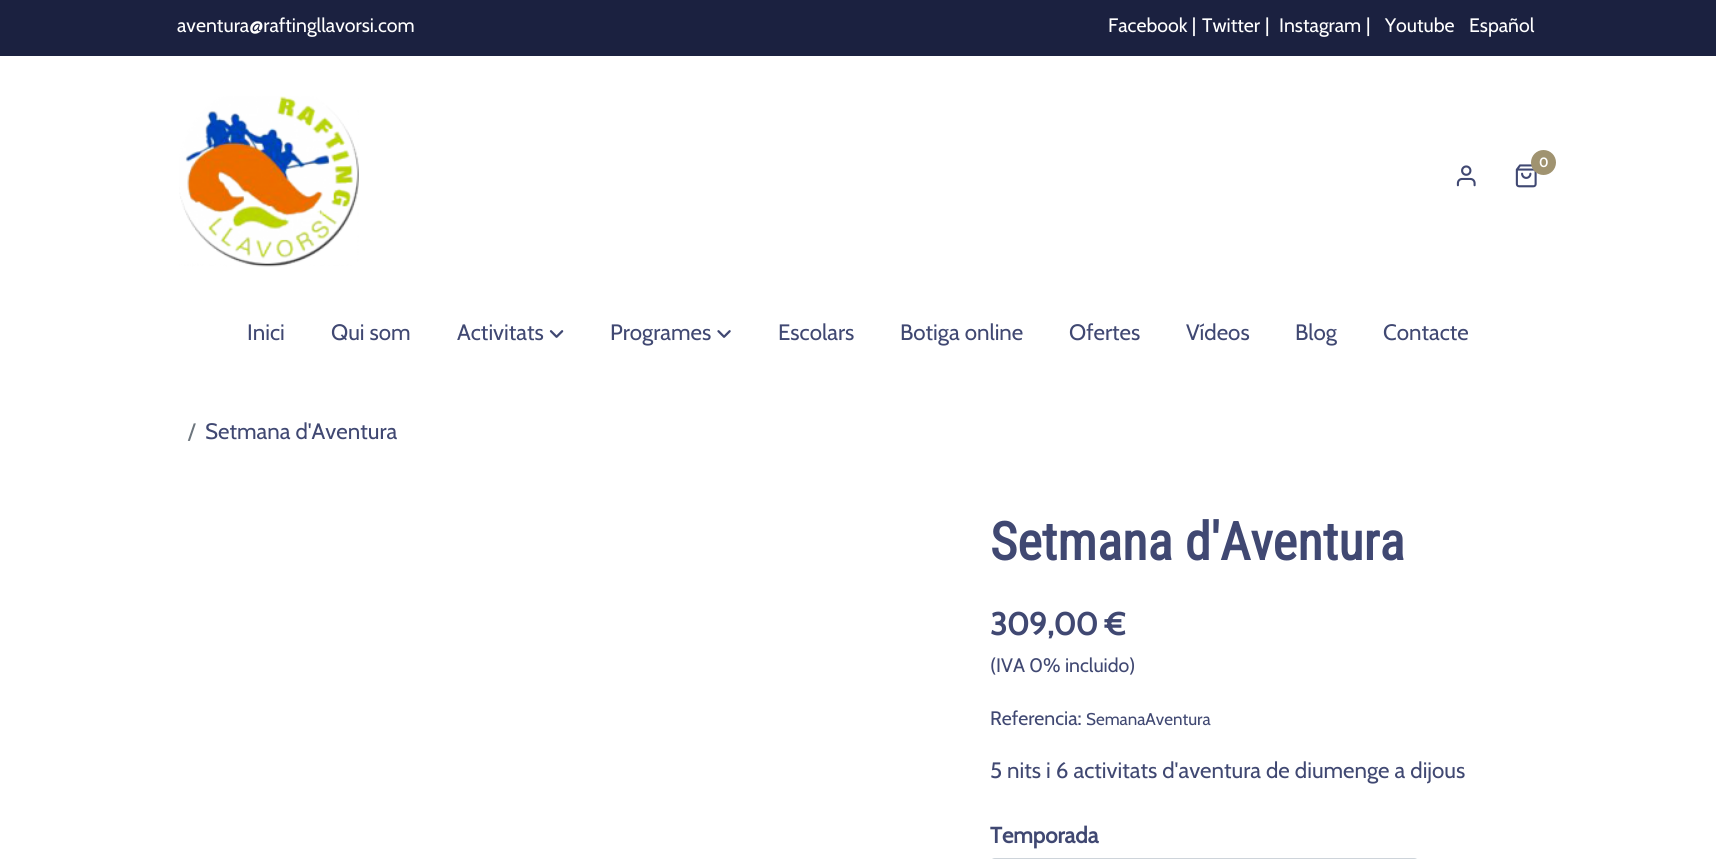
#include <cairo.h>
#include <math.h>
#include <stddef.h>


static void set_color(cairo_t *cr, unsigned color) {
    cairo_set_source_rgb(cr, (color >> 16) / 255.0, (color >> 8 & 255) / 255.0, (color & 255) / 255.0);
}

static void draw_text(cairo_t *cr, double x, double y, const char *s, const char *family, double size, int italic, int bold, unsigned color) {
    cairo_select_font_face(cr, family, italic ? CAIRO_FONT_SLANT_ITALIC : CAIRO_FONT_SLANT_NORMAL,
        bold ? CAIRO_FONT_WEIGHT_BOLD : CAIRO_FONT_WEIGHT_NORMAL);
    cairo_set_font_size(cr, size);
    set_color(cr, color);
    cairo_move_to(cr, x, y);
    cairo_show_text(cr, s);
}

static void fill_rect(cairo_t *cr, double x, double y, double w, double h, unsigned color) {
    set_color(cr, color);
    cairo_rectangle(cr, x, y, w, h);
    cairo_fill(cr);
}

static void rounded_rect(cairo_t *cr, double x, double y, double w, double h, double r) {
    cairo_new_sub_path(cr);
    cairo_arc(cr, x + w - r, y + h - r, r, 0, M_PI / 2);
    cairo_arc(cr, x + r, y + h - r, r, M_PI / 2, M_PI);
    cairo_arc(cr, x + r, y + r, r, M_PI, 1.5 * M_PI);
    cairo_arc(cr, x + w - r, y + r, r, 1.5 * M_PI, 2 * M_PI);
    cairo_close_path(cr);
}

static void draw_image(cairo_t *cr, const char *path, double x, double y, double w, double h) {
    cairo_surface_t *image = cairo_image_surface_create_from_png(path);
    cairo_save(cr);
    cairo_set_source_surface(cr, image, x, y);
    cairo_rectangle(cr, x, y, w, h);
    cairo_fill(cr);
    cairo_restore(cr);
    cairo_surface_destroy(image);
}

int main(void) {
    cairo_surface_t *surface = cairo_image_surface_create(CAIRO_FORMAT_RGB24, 1716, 859);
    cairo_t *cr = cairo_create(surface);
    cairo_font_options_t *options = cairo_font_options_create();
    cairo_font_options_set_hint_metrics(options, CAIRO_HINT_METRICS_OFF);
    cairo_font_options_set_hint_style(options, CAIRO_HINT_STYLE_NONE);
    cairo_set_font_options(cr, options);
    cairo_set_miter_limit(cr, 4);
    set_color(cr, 0xFFFFFF);
    cairo_paint(cr);
    fill_rect(cr, 0, 0, 1716, 56, 0x1B2140);
    draw_text(cr, 177, 32, "aventura@raftingllavorsi.com", "Cabin", 19.5, 0, 0, 0xFFFFFF);
    draw_text(cr, 1108, 32, "Facebook |", "Cabin", 19.5, 0, 0, 0xFFFFFF);
    draw_text(cr, 1202, 32, "Twitter", "Cabin", 19.5, 0, 0, 0xFFFFFF);
    draw_text(cr, 1265, 32, "|", "Cabin", 19.5, 0, 0, 0xFFFFFF);
    draw_text(cr, 1279, 32, "Instagram", "Cabin", 19.5, 0, 0, 0xFFFFFF);
    draw_text(cr, 1366, 32, "|", "Cabin", 19.5, 0, 0, 0xFFFFFF);
    draw_text(cr, 1385, 32, "Youtube", "Cabin", 19.5, 0, 0, 0xFFFFFF);
    draw_text(cr, 1469, 32, "Español", "Cabin", 19.5, 0, 0, 0xFFFFFF);
    draw_image(cr, "assets/img1.png", 179, 96, 180, 171);
    draw_image(cr, "assets/img2.png", 1515, 164, 22, 24);
    set_color(cr, 0xA09370);
    cairo_arc(cr, 1543.5, 162.5, 12.5, 0, 2 * M_PI);
    cairo_fill(cr);
    draw_text(cr, 1539, 167, "0", "Cabin", 13, 0, 1, 0xFFFFFF);
    draw_image(cr, "assets/img3.png", 1456, 165, 20, 22);
    draw_text(cr, 247, 340, "Inici", "Cabin", 22.3, 0, 0, 0x404872);
    draw_text(cr, 331, 340, "Qui som", "Cabin", 22.3, 0, 0, 0x404872);
    draw_text(cr, 457, 340, "Activitats", "Cabin", 22.3, 0, 0, 0x404872);
    draw_image(cr, "assets/img4.png", 549, 330, 15, 8);
    draw_text(cr, 610, 340, "Programes", "Cabin", 22.3, 0, 0, 0x404872);
    draw_image(cr, "assets/img5.png", 717, 330, 14, 8);
    draw_text(cr, 778, 340, "Escolars", "Cabin", 22.3, 0, 0, 0x404872);
    draw_text(cr, 900, 340, "Botiga online", "Cabin", 22.3, 0, 0, 0x404872);
    draw_text(cr, 1069, 340, "Ofertes", "Cabin", 22.3, 0, 0, 0x404872);
    draw_text(cr, 1186, 340, "Vídeos", "Cabin", 22.3, 0, 0, 0x404872);
    draw_text(cr, 1295, 340, "Blog", "Cabin", 22.3, 0, 0, 0x404872);
    draw_text(cr, 1383, 340, "Contacte", "Cabin", 22.3, 0, 0, 0x404872);
    draw_text(cr, 188, 439, "/", "Cabin", 22.3, 0, 0, 0x6C757D);
    draw_text(cr, 205, 439, "Setmana d'Aventura", "Cabin", 22.3, 0, 0, 0x404872);
    draw_text(cr, 990, 560, "Setmana d'Aventura", "Roboto Condensed", 52.5, 0, 1, 0x404872);
    draw_text(cr, 990, 635, "309,00 €", "Cabin", 31.5, 0, 1, 0x404872);
    draw_text(cr, 990, 672, "(IVA 0% incluido)", "Cabin", 19.5, 0, 0, 0x404872);
    draw_text(cr, 990, 725, "Referencia:", "Cabin", 19.5, 0, 0, 0x404872);
    draw_text(cr, 1086, 725, "SemanaAventura", "Cabin", 17, 0, 0, 0x404872);
    draw_text(cr, 990, 778, "5 nits i 6 activitats d'aventura de diumenge a dijous", "Cabin", 22.3, 0, 0, 0x404872);
    draw_text(cr, 990, 843, "Temporada", "Cabin", 22.3, 0, 1, 0x404872);
    rounded_rect(cr, 990.5, 858.5, 428, 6, 4.5);
    set_color(cr, 0xCED4DA);
    cairo_set_line_width(cr, 1);
    cairo_stroke(cr);
    cairo_surface_write_to_png(surface, "output.png");
    cairo_font_options_destroy(options);
    cairo_destroy(cr);
    cairo_surface_destroy(surface);
    return 0;
}
